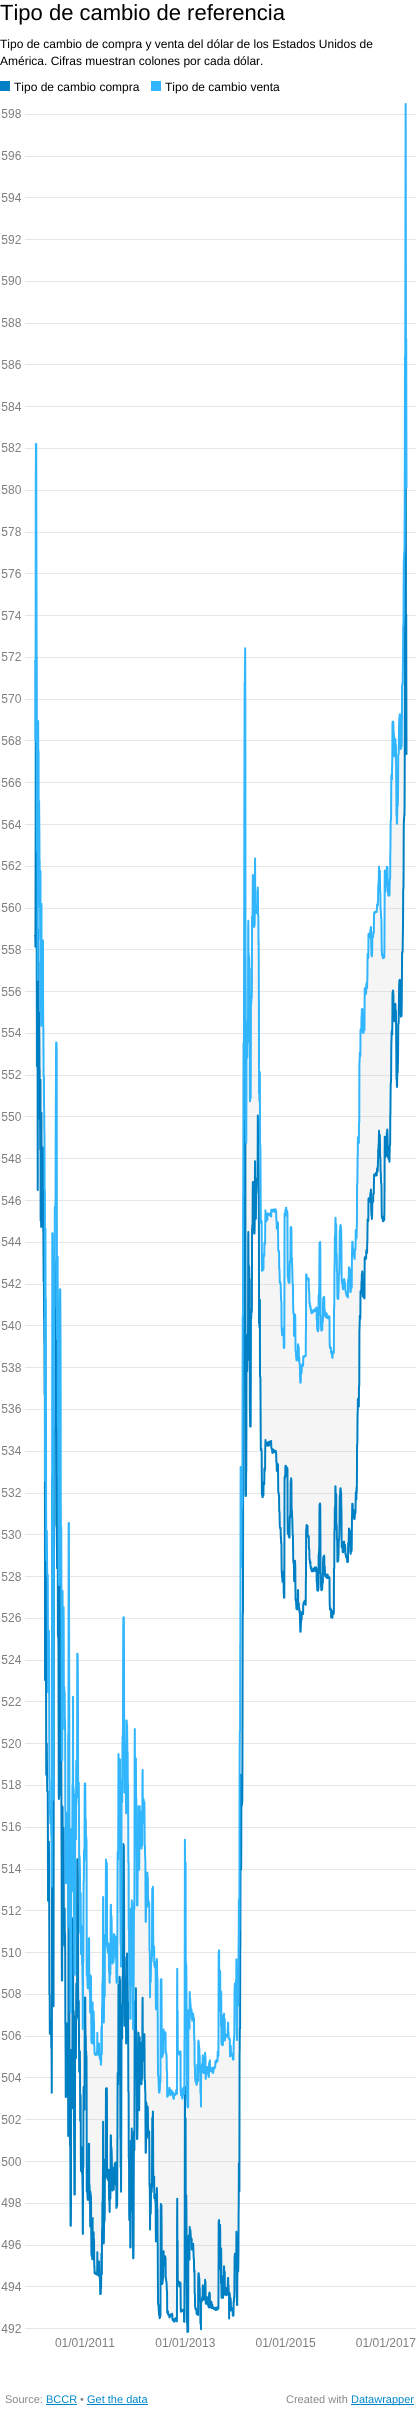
#include <cairo.h>
#include <math.h>
#include <stddef.h>


static void set_color(cairo_t *cr, unsigned color) {
    cairo_set_source_rgb(cr, (color >> 16) / 255.0, (color >> 8 & 255) / 255.0, (color & 255) / 255.0);
}

static void draw_text(cairo_t *cr, double x, double y, const char *s, const char *family, double size, int italic, int bold, unsigned color) {
    cairo_select_font_face(cr, family, italic ? CAIRO_FONT_SLANT_ITALIC : CAIRO_FONT_SLANT_NORMAL,
        bold ? CAIRO_FONT_WEIGHT_BOLD : CAIRO_FONT_WEIGHT_NORMAL);
    cairo_set_font_size(cr, size);
    set_color(cr, color);
    cairo_move_to(cr, x, y);
    cairo_show_text(cr, s);
}

static void fill_rect(cairo_t *cr, double x, double y, double w, double h, unsigned color) {
    set_color(cr, color);
    cairo_rectangle(cr, x, y, w, h);
    cairo_fill(cr);
}

static void draw_image(cairo_t *cr, const char *path, double x, double y, double w, double h) {
    cairo_surface_t *image = cairo_image_surface_create_from_png(path);
    cairo_save(cr);
    cairo_set_source_surface(cr, image, x, y);
    cairo_rectangle(cr, x, y, w, h);
    cairo_fill(cr);
    cairo_restore(cr);
    cairo_surface_destroy(image);
}

int main(void) {
    cairo_surface_t *surface = cairo_image_surface_create(CAIRO_FORMAT_RGB24, 419, 2410);
    cairo_t *cr = cairo_create(surface);
    cairo_font_options_t *options = cairo_font_options_create();
    cairo_font_options_set_hint_metrics(options, CAIRO_HINT_METRICS_OFF);
    cairo_font_options_set_hint_style(options, CAIRO_HINT_STYLE_NONE);
    cairo_set_font_options(cr, options);
    cairo_set_miter_limit(cr, 4);
    set_color(cr, 0xFFFFFF);
    cairo_paint(cr);
    draw_text(cr, 0, 20, "Tipo de cambio de referencia", "Liberation Sans", 22, 0, 0, 0x000000);
    draw_text(cr, 0, 48, "Tipo de cambio de compra y venta del dólar de los Estados Unidos de", "Liberation Sans", 12, 0, 0, 0x000000);
    draw_text(cr, 0, 65, "América. Cifras muestran colones por cada dólar.", "Liberation Sans", 12, 0, 0, 0x000000);
    fill_rect(cr, 0, 81, 10, 10, 0x0080C4);
    draw_text(cr, 14, 91, "Tipo de cambio compra", "Liberation Sans", 12, 0, 0, 0x000000);
    fill_rect(cr, 151, 81, 10, 10, 0x31B5FD);
    draw_text(cr, 165, 91, "Tipo de cambio venta", "Liberation Sans", 12, 0, 0, 0x000000);
    draw_image(cr, "assets/img1.png", 1, 103, 415, 2244);
    draw_text(cr, 5, 2403, "Source:", "Liberation Sans", 11, 0, 0, 0x888888);
    draw_text(cr, 46, 2403, "BCCR", "Liberation Sans", 11, 0, 0, 0x0088CC);
    fill_rect(cr, 46, 2404, 31, 1, 0x0088CC);
    draw_text(cr, 80, 2403, "•", "Liberation Sans", 11, 0, 0, 0x888888);
    draw_text(cr, 87, 2403, "Get the data", "Liberation Sans", 11, 0, 0, 0x0088CC);
    fill_rect(cr, 87, 2404, 61, 1, 0x0088CC);
    draw_text(cr, 286, 2403, "Created with", "Liberation Sans", 11, 0, 0, 0x888888);
    fill_rect(cr, 351, 2404, 63, 1, 0x0088CC);
    draw_text(cr, 351, 2403, "Datawrapper", "Liberation Sans", 11, 0, 0, 0x0088CC);
    cairo_surface_write_to_png(surface, "output.png");
    cairo_font_options_destroy(options);
    cairo_destroy(cr);
    cairo_surface_destroy(surface);
    return 0;
}
